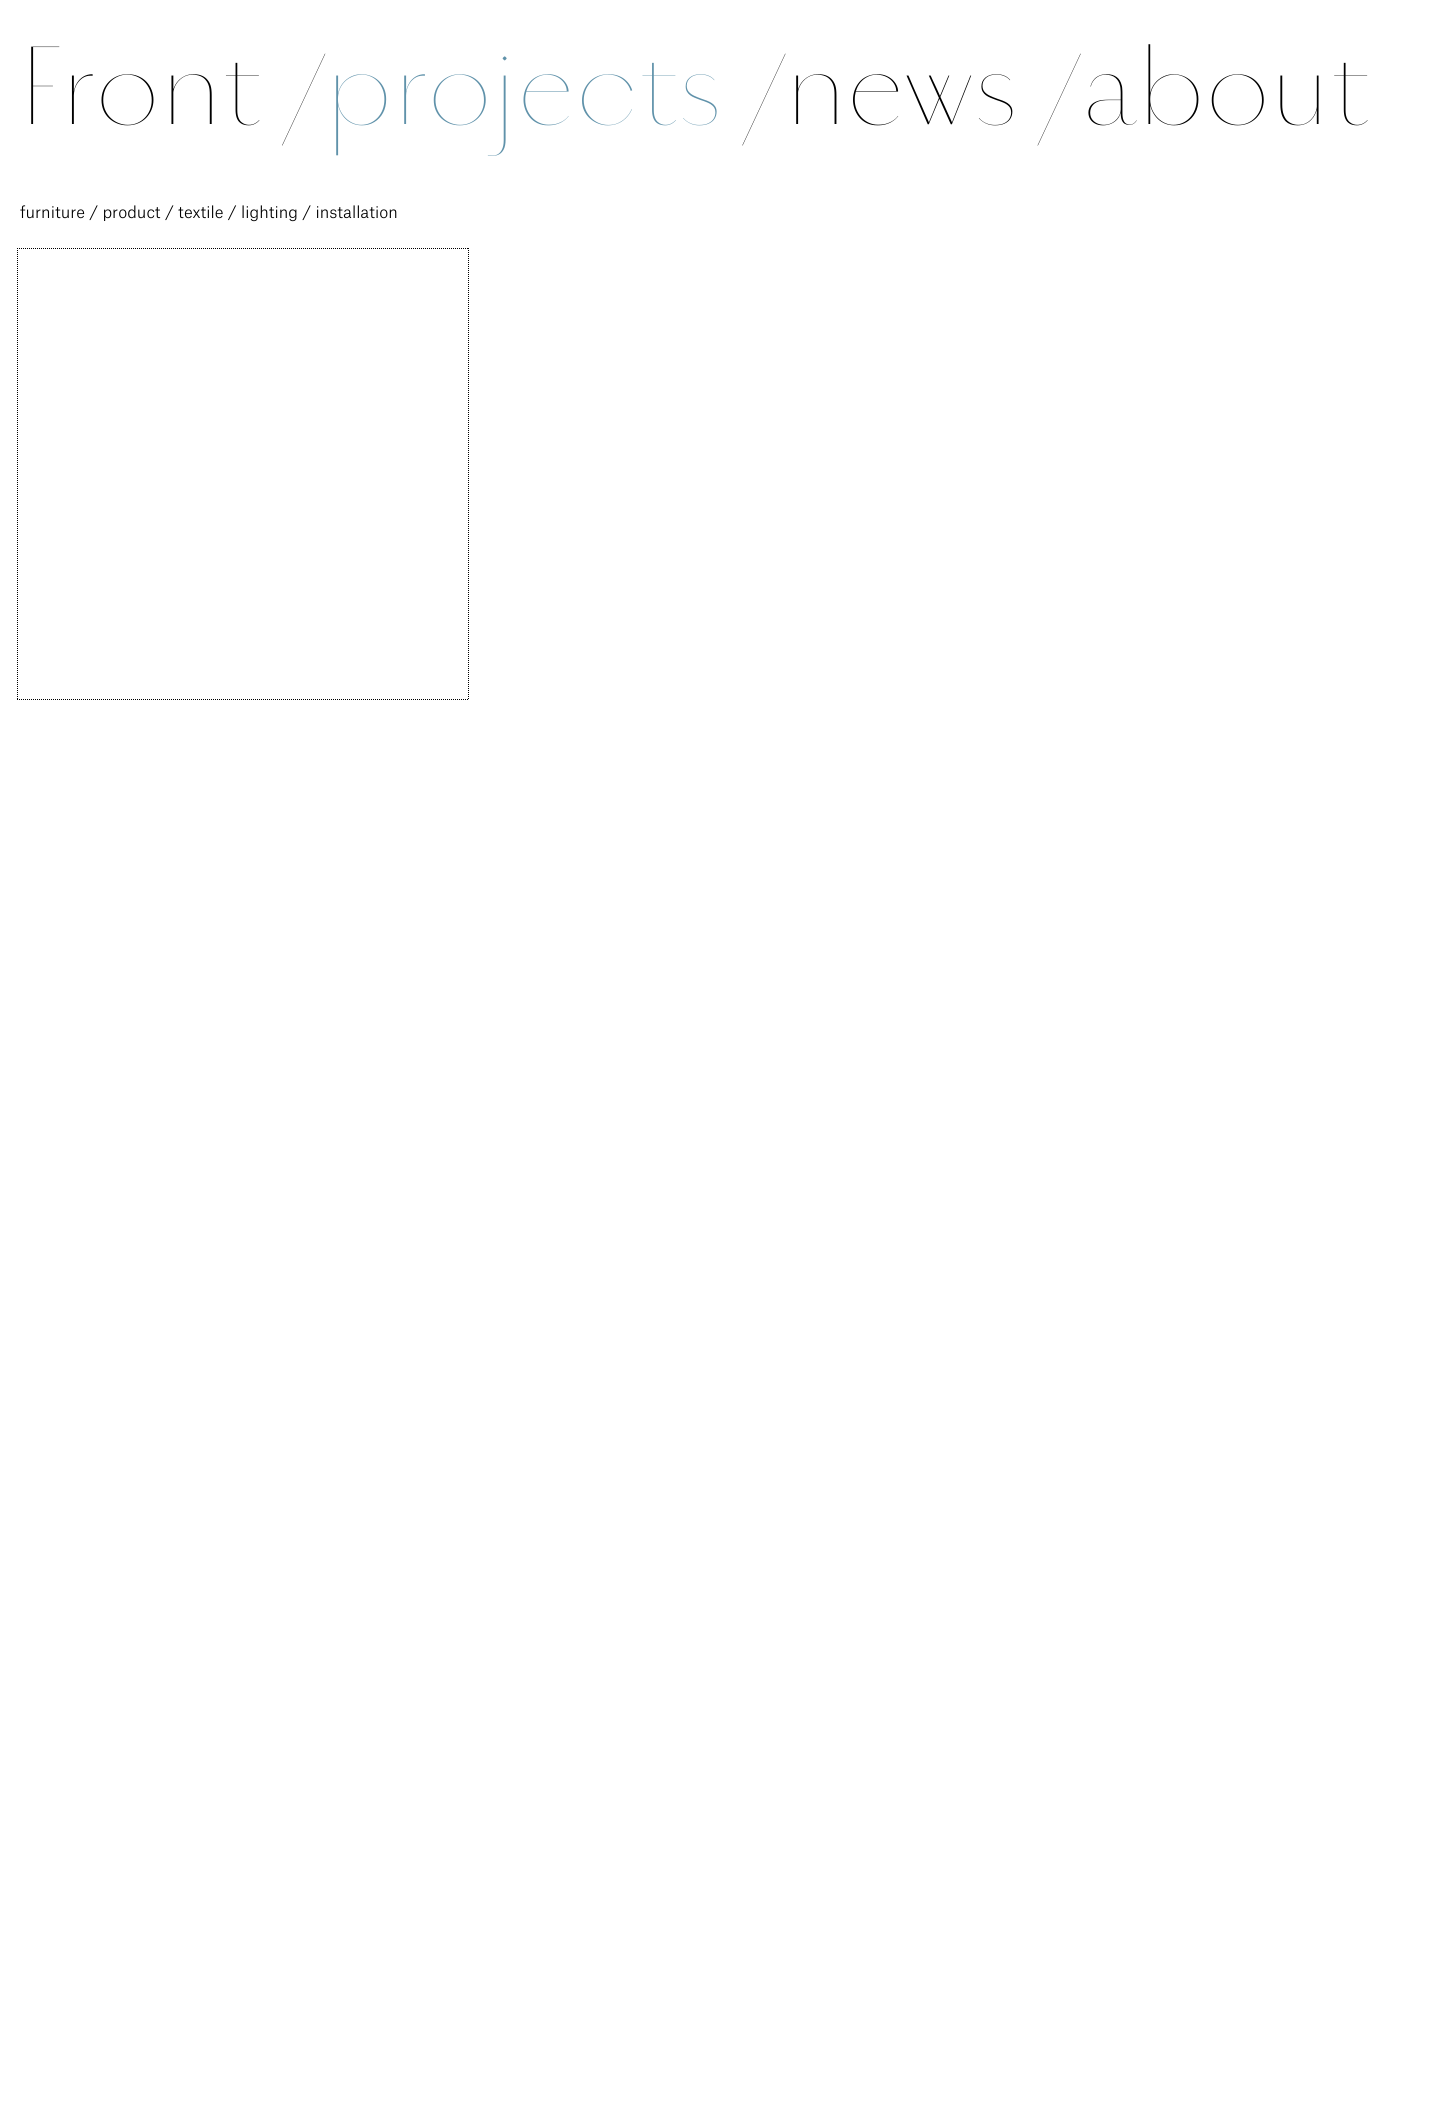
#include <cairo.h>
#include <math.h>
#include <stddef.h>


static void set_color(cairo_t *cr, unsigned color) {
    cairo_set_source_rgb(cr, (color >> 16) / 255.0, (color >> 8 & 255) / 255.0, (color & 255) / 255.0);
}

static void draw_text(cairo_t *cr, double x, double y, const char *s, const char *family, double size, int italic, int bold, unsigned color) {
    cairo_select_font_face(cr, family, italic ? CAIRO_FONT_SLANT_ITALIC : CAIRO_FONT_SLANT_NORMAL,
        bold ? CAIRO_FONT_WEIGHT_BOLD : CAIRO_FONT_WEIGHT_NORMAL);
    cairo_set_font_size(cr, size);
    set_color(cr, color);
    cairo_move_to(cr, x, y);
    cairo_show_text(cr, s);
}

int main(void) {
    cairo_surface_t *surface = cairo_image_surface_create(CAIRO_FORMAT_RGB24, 1447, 2101);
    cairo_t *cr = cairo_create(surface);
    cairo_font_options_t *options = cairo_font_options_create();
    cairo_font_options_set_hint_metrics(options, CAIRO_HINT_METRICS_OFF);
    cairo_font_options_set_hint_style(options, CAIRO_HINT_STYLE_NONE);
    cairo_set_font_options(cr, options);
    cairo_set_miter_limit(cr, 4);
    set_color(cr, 0xFFFFFF);
    cairo_paint(cr);
    draw_text(cr, 20, 124, "Front /", "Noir", 135, 0, 0, 0x000000);
    draw_text(cr, 325, 124, "projects", "Noir", 135, 0, 0, 0x6092AA);
    draw_text(cr, 749, 124, "/", "Noir", 135, 0, 0, 0x000000);
    draw_text(cr, 785, 124, "news /", "Noir", 135, 0, 0, 0x000000);
    draw_text(cr, 1081, 124, "about", "Noir", 135, 0, 0, 0x000000);
    draw_text(cr, 20, 218, "furniture / product / textile / lighting / installation", "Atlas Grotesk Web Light", 16, 0, 0, 0x000000);
    cairo_new_path(cr);
    cairo_move_to(cr, 17, 248.5);
    cairo_line_to(cr, 469, 248.5);
    cairo_set_line_width(cr, 1);
    cairo_set_dash(cr, (double[]){1, 1}, 2, 0);
    cairo_stroke(cr);
    cairo_new_path(cr);
    cairo_move_to(cr, 468.5, 248);
    cairo_line_to(cr, 468.5, 700);
    cairo_stroke(cr);
    cairo_new_path(cr);
    cairo_move_to(cr, 17, 699.5);
    cairo_line_to(cr, 469, 699.5);
    cairo_stroke(cr);
    cairo_new_path(cr);
    cairo_move_to(cr, 17.5, 248);
    cairo_line_to(cr, 17.5, 700);
    cairo_stroke(cr);
    cairo_surface_write_to_png(surface, "output.png");
    cairo_font_options_destroy(options);
    cairo_destroy(cr);
    cairo_surface_destroy(surface);
    return 0;
}
